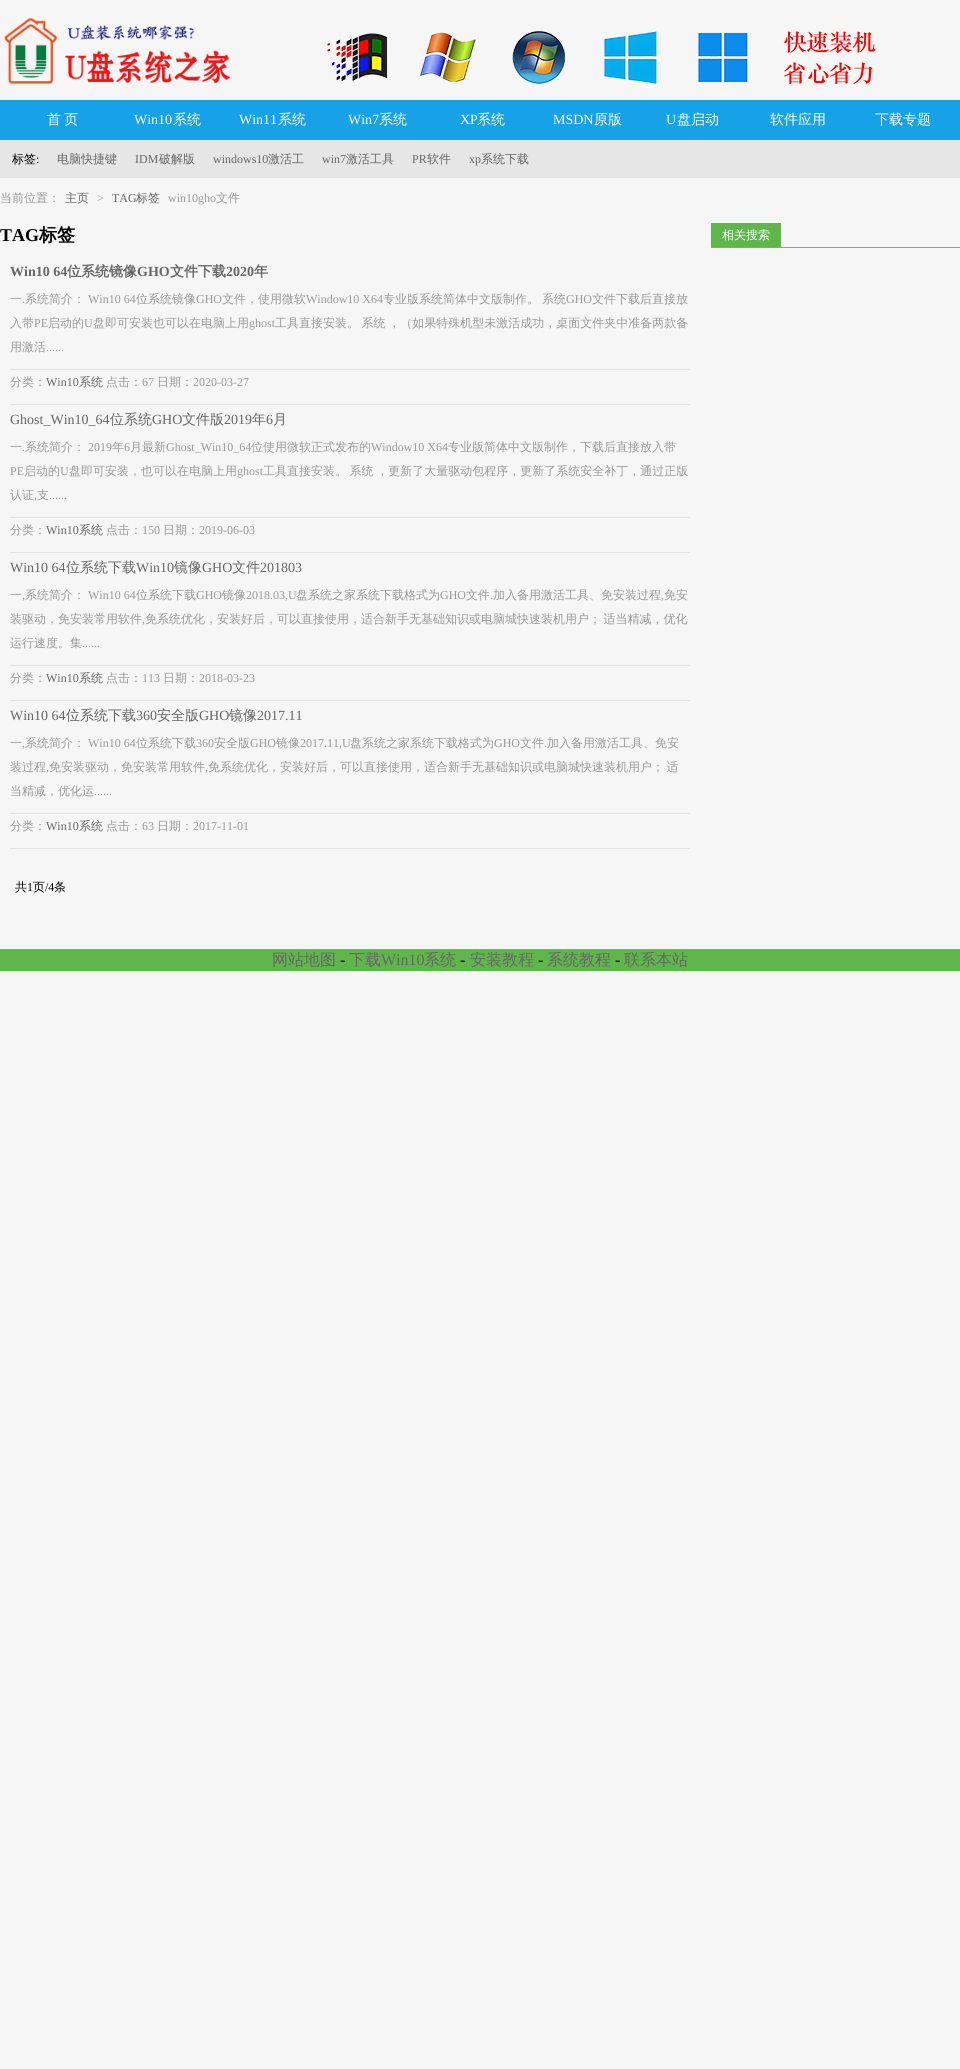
#include <cairo.h>
#include <math.h>
#include <stddef.h>


static void set_color(cairo_t *cr, unsigned color) {
    cairo_set_source_rgb(cr, (color >> 16) / 255.0, (color >> 8 & 255) / 255.0, (color & 255) / 255.0);
}

static void draw_text(cairo_t *cr, double x, double y, const char *s, const char *family, double size, int italic, int bold, unsigned color) {
    cairo_select_font_face(cr, family, italic ? CAIRO_FONT_SLANT_ITALIC : CAIRO_FONT_SLANT_NORMAL,
        bold ? CAIRO_FONT_WEIGHT_BOLD : CAIRO_FONT_WEIGHT_NORMAL);
    cairo_set_font_size(cr, size);
    set_color(cr, color);
    cairo_move_to(cr, x, y);
    cairo_show_text(cr, s);
}

static void draw_spaced(cairo_t *cr, double x, double y, const char *s, double letter, double word) {
    cairo_move_to(cr, x, y);
    while (*s) {
        char ch[5] = {0};
        int n = 0;
        do ch[n++] = *s++; while ((*s & 0xC0) == 0x80);
        cairo_show_text(cr, ch);
        cairo_rel_move_to(cr, letter + word * (*ch == ' '), 0);
    }
}

static void fill_rect(cairo_t *cr, double x, double y, double w, double h, unsigned color) {
    set_color(cr, color);
    cairo_rectangle(cr, x, y, w, h);
    cairo_fill(cr);
}

static void draw_image(cairo_t *cr, const char *path, double x, double y, double w, double h) {
    cairo_surface_t *image = cairo_image_surface_create_from_png(path);
    cairo_save(cr);
    cairo_set_source_surface(cr, image, x, y);
    cairo_rectangle(cr, x, y, w, h);
    cairo_fill(cr);
    cairo_restore(cr);
    cairo_surface_destroy(image);
}

int main(void) {
    cairo_surface_t *surface = cairo_image_surface_create(CAIRO_FORMAT_RGB24, 960, 2069);
    cairo_t *cr = cairo_create(surface);
    cairo_font_options_t *options = cairo_font_options_create();
    cairo_font_options_set_hint_metrics(options, CAIRO_HINT_METRICS_OFF);
    cairo_font_options_set_hint_style(options, CAIRO_HINT_STYLE_NONE);
    cairo_set_font_options(cr, options);
    cairo_set_miter_limit(cr, 4);
    set_color(cr, 0xF6F6F6);
    cairo_paint(cr);
    draw_image(cr, "assets/img1.png", 4, 17, 227, 67);
    draw_image(cr, "assets/img2.png", 327, 31, 549, 53);
    fill_rect(cr, 0, 100, 960, 40, 0x17A2E7);
    cairo_select_font_face(cr, "WenQuanYi Zen Hei Medium", CAIRO_FONT_SLANT_NORMAL, CAIRO_FONT_WEIGHT_NORMAL);
    cairo_set_font_size(cr, 14);
    set_color(cr, 0xFFFFFF);
    draw_spaced(cr, 47, 124, "首 页", 0, -1);
    draw_text(cr, 134, 124, "Win10", "Liberation Serif", 14, 0, 0, 0xFFFFFF);
    draw_text(cr, 173, 124, "系统", "WenQuanYi Zen Hei Medium", 14, 0, 0, 0xFFFFFF);
    draw_text(cr, 239, 124, "Win11", "Liberation Serif", 14, 0, 0, 0xFFFFFF);
    draw_text(cr, 278, 124, "系统", "WenQuanYi Zen Hei Medium", 14, 0, 0, 0xFFFFFF);
    draw_text(cr, 348, 124, "Win7", "Liberation Serif", 14, 0, 0, 0xFFFFFF);
    draw_text(cr, 379, 124, "系统", "WenQuanYi Zen Hei Medium", 14, 0, 0, 0xFFFFFF);
    draw_text(cr, 460, 124, "XP", "Liberation Serif", 14, 0, 0, 0xFFFFFF);
    draw_text(cr, 477, 124, "系统", "WenQuanYi Zen Hei Medium", 14, 0, 0, 0xFFFFFF);
    draw_text(cr, 553, 124, "MSDN", "Liberation Serif", 14, 0, 0, 0xFFFFFF);
    draw_text(cr, 594, 124, "原版", "WenQuanYi Zen Hei Medium", 14, 0, 0, 0xFFFFFF);
    draw_text(cr, 666, 124, "U", "Liberation Serif", 14, 0, 0, 0xFFFFFF);
    draw_text(cr, 677, 124, "盘启动", "WenQuanYi Zen Hei Medium", 14, 0, 0, 0xFFFFFF);
    draw_text(cr, 770, 124, "软件应用", "WenQuanYi Zen Hei Medium", 14, 0, 0, 0xFFFFFF);
    draw_text(cr, 875, 124, "下载专题", "WenQuanYi Zen Hei Medium", 14, 0, 0, 0xFFFFFF);
    fill_rect(cr, 0, 140, 960, 38, 0xE6E6E6);
    draw_text(cr, 12, 163, "标签", "WenQuanYi Zen Hei Medium", 12, 0, 0, 0x000000);
    draw_text(cr, 36, 163, ":", "Liberation Serif", 12, 0, 0, 0x000000);
    draw_text(cr, 57, 163, "电脑快捷键", "WenQuanYi Zen Hei Medium", 12, 0, 0, 0x666666);
    draw_text(cr, 135, 163, "IDM", "Liberation Serif", 12, 0, 0, 0x666666);
    draw_text(cr, 159, 163, "破解版", "WenQuanYi Zen Hei Medium", 12, 0, 0, 0x666666);
    draw_text(cr, 213, 163, "windows10", "Liberation Serif", 12, 0, 0, 0x666666);
    draw_text(cr, 268, 163, "激活工", "WenQuanYi Zen Hei Medium", 12, 0, 0, 0x666666);
    draw_text(cr, 322, 163, "win7", "Liberation Serif", 12, 0, 0, 0x666666);
    draw_text(cr, 346, 163, "激活工具", "WenQuanYi Zen Hei Medium", 12, 0, 0, 0x666666);
    draw_text(cr, 412, 163, "PR", "Liberation Serif", 12, 0, 0, 0x666666);
    draw_text(cr, 427, 163, "软件", "WenQuanYi Zen Hei Medium", 12, 0, 0, 0x666666);
    draw_text(cr, 469, 163, "xp", "Liberation Serif", 12, 0, 0, 0x666666);
    draw_text(cr, 481, 163, "系统下载", "WenQuanYi Zen Hei Medium", 12, 0, 0, 0x666666);
    draw_text(cr, 0, 202, "当前位置：", "WenQuanYi Zen Hei Medium", 12, 0, 0, 0x999999);
    draw_text(cr, 65, 202, "主页", "WenQuanYi Zen Hei Medium", 12, 0, 0, 0x666666);
    draw_text(cr, 97, 202, ">", "Liberation Serif", 12, 0, 0, 0x999999);
    draw_text(cr, 112, 202, "TAG", "Liberation Serif", 12, 0, 0, 0x666666);
    draw_text(cr, 136, 202, "标签", "WenQuanYi Zen Hei Medium", 12, 0, 0, 0x666666);
    draw_text(cr, 168, 202, "win10gho", "Liberation Serif", 12, 0, 0, 0x999999);
    draw_text(cr, 216, 202, "文件", "WenQuanYi Zen Hei Medium", 12, 0, 0, 0x999999);
    draw_text(cr, 0, 241, "TAG", "Liberation Serif", 18, 0, 1, 0x000000);
    draw_text(cr, 39, 241, "标签", "WenQuanYi Zen Hei", 18, 0, 1, 0x000000);
    draw_text(cr, 10, 276, "Win10 64", "Liberation Serif", 14, 0, 1, 0x666666);
    draw_text(cr, 67, 276, "位系统镜像", "WenQuanYi Zen Hei", 14, 0, 1, 0x666666);
    draw_text(cr, 137, 276, "GHO", "Liberation Serif", 14, 0, 1, 0x666666);
    draw_text(cr, 170, 276, "文件下载", "WenQuanYi Zen Hei", 14, 0, 1, 0x666666);
    draw_text(cr, 226, 276, "2020", "Liberation Serif", 14, 0, 1, 0x666666);
    draw_text(cr, 254, 276, "年", "WenQuanYi Zen Hei", 14, 0, 1, 0x666666);
    fill_rect(cr, 10, 369, 680, 1, 0xE2E2E2);
    draw_text(cr, 10, 303, "一", "WenQuanYi Zen Hei Medium", 12, 0, 0, 0x999999);
    draw_text(cr, 25, 303, "系统简介：", "WenQuanYi Zen Hei Medium", 12, 0, 0, 0x999999);
    draw_text(cr, 88, 303, "Win10 64", "Liberation Serif", 12, 0, 0, 0x999999);
    draw_text(cr, 136, 303, "位系统镜像", "WenQuanYi Zen Hei Medium", 12, 0, 0, 0x999999);
    draw_text(cr, 196, 303, "GHO", "Liberation Serif", 12, 0, 0, 0x999999);
    draw_text(cr, 222, 303, "文件，使用微软", "WenQuanYi Zen Hei Medium", 12, 0, 0, 0x999999);
    draw_text(cr, 306, 303, "Window10 X64", "Liberation Serif", 12, 0, 0, 0x999999);
    draw_text(cr, 383, 303, "专业版系统简体中文版制作。", "WenQuanYi Zen Hei Medium", 12, 0, 0, 0x999999);
    draw_text(cr, 542, 303, "系统", "WenQuanYi Zen Hei Medium", 12, 0, 0, 0x999999);
    draw_text(cr, 566, 303, "GHO", "Liberation Serif", 12, 0, 0, 0x999999);
    draw_text(cr, 592, 303, "文件下载后直接放", "WenQuanYi Zen Hei Medium", 12, 0, 0, 0x999999);
    draw_text(cr, 22, 303, ".", "Liberation Serif", 12, 0, 0, 0x999999);
    draw_text(cr, 10, 327, "入带", "WenQuanYi Zen Hei Medium", 12, 0, 0, 0x999999);
    draw_text(cr, 34, 327, "PE", "Liberation Serif", 12, 0, 0, 0x999999);
    draw_text(cr, 48, 327, "启动的", "WenQuanYi Zen Hei Medium", 12, 0, 0, 0x999999);
    draw_text(cr, 84, 327, "U", "Liberation Serif", 12, 0, 0, 0x999999);
    draw_text(cr, 93, 327, "盘即可安装也可以在电脑上用", "WenQuanYi Zen Hei Medium", 12, 0, 0, 0x999999);
    draw_text(cr, 249, 327, "ghost", "Liberation Serif", 12, 0, 0, 0x999999);
    cairo_select_font_face(cr, "WenQuanYi Zen Hei Medium", CAIRO_FONT_SLANT_NORMAL, CAIRO_FONT_WEIGHT_NORMAL);
    draw_spaced(cr, 275, 327, "工具直接安装。 系统 ，（如果特殊机型未激活成功，桌面文件夹中准备两款备", 0, -1);
    draw_text(cr, 10, 351, "用激活", "WenQuanYi Zen Hei Medium", 12, 0, 0, 0x999999);
    draw_text(cr, 46, 351, "......", "Liberation Serif", 12, 0, 0, 0x999999);
    fill_rect(cr, 10, 404, 680, 1, 0xE2E2E2);
    draw_text(cr, 10, 386, "分类：", "WenQuanYi Zen Hei Medium", 12, 0, 0, 0x999999);
    draw_text(cr, 46, 386, "Win10", "Liberation Serif", 12, 0, 0, 0x666666);
    draw_text(cr, 79, 386, "系统", "WenQuanYi Zen Hei Medium", 12, 0, 0, 0x666666);
    draw_text(cr, 106, 386, "点击：", "WenQuanYi Zen Hei Medium", 12, 0, 0, 0x999999);
    draw_text(cr, 142, 386, "67", "Liberation Serif", 12, 0, 0, 0x999999);
    draw_text(cr, 157, 386, "日期：", "WenQuanYi Zen Hei Medium", 12, 0, 0, 0x999999);
    draw_text(cr, 193, 386, "2020-03-27", "Liberation Serif", 12, 0, 0, 0x999999);
    draw_text(cr, 10, 424, "Ghost_Win10_64", "Liberation Serif", 14, 0, 0, 0x666666);
    draw_text(cr, 110, 424, "位系统", "WenQuanYi Zen Hei Medium", 14, 0, 0, 0x666666);
    draw_text(cr, 152, 424, "GHO", "Liberation Serif", 14, 0, 0, 0x666666);
    draw_text(cr, 182, 424, "文件版", "WenQuanYi Zen Hei Medium", 14, 0, 0, 0x666666);
    draw_text(cr, 224, 424, "2019", "Liberation Serif", 14, 0, 0, 0x666666);
    draw_text(cr, 252, 424, "年", "WenQuanYi Zen Hei Medium", 14, 0, 0, 0x666666);
    draw_text(cr, 266, 424, "6", "Liberation Serif", 14, 0, 0, 0x666666);
    draw_text(cr, 273, 424, "月", "WenQuanYi Zen Hei Medium", 14, 0, 0, 0x666666);
    fill_rect(cr, 10, 517, 680, 1, 0xE2E2E2);
    draw_text(cr, 10, 451, "一", "WenQuanYi Zen Hei Medium", 12, 0, 0, 0x999999);
    draw_text(cr, 25, 451, "系统简介：", "WenQuanYi Zen Hei Medium", 12, 0, 0, 0x999999);
    draw_text(cr, 88, 451, "2019", "Liberation Serif", 12, 0, 0, 0x999999);
    draw_text(cr, 112, 451, "年", "WenQuanYi Zen Hei Medium", 12, 0, 0, 0x999999);
    draw_text(cr, 124, 451, "6", "Liberation Serif", 12, 0, 0, 0x999999);
    draw_text(cr, 130, 451, "月最新", "WenQuanYi Zen Hei Medium", 12, 0, 0, 0x999999);
    draw_text(cr, 166, 451, "Ghost_Win10_64", "Liberation Serif", 12, 0, 0, 0x999999);
    draw_text(cr, 251, 451, "位使用微软正式发布的", "WenQuanYi Zen Hei Medium", 12, 0, 0, 0x999999);
    draw_text(cr, 371, 451, "Window10 X64", "Liberation Serif", 12, 0, 0, 0x999999);
    draw_text(cr, 448, 451, "专业版简体中文版制作，下载后直接放入带", "WenQuanYi Zen Hei Medium", 12, 0, 0, 0x999999);
    draw_text(cr, 22, 451, ".", "Liberation Serif", 12, 0, 0, 0x999999);
    draw_text(cr, 10, 475, "PE", "Liberation Serif", 12, 0, 0, 0x999999);
    draw_text(cr, 24, 475, "启动的", "WenQuanYi Zen Hei Medium", 12, 0, 0, 0x999999);
    draw_text(cr, 60, 475, "U", "Liberation Serif", 12, 0, 0, 0x999999);
    draw_text(cr, 69, 475, "盘即可安装，也可以在电脑上用", "WenQuanYi Zen Hei Medium", 12, 0, 0, 0x999999);
    draw_text(cr, 237, 475, "ghost", "Liberation Serif", 12, 0, 0, 0x999999);
    cairo_select_font_face(cr, "WenQuanYi Zen Hei Medium", CAIRO_FONT_SLANT_NORMAL, CAIRO_FONT_WEIGHT_NORMAL);
    draw_spaced(cr, 263, 475, "工具直接安装。 系统 ，更新了大量驱动包程序，更新了系统安全补丁，通过正版", 0, -1);
    draw_text(cr, 10, 499, "认证", "WenQuanYi Zen Hei Medium", 12, 0, 0, 0x999999);
    draw_text(cr, 34, 499, ",", "Liberation Serif", 12, 0, 0, 0x999999);
    draw_text(cr, 37, 499, "支", "WenQuanYi Zen Hei Medium", 12, 0, 0, 0x999999);
    draw_text(cr, 49, 499, "......", "Liberation Serif", 12, 0, 0, 0x999999);
    fill_rect(cr, 10, 552, 680, 1, 0xE2E2E2);
    draw_text(cr, 10, 534, "分类：", "WenQuanYi Zen Hei Medium", 12, 0, 0, 0x999999);
    draw_text(cr, 46, 534, "Win10", "Liberation Serif", 12, 0, 0, 0x666666);
    draw_text(cr, 79, 534, "系统", "WenQuanYi Zen Hei Medium", 12, 0, 0, 0x666666);
    draw_text(cr, 106, 534, "点击：", "WenQuanYi Zen Hei Medium", 12, 0, 0, 0x999999);
    draw_text(cr, 142, 534, "150", "Liberation Serif", 12, 0, 0, 0x999999);
    draw_text(cr, 163, 534, "日期：", "WenQuanYi Zen Hei Medium", 12, 0, 0, 0x999999);
    draw_text(cr, 199, 534, "2019-06-03", "Liberation Serif", 12, 0, 0, 0x999999);
    draw_text(cr, 10, 572, "Win10 64", "Liberation Serif", 14, 0, 0, 0x666666);
    draw_text(cr, 66, 572, "位系统下载", "WenQuanYi Zen Hei Medium", 14, 0, 0, 0x666666);
    draw_text(cr, 136, 572, "Win10", "Liberation Serif", 14, 0, 0, 0x666666);
    draw_text(cr, 174, 572, "镜像", "WenQuanYi Zen Hei Medium", 14, 0, 0, 0x666666);
    draw_text(cr, 202, 572, "GHO", "Liberation Serif", 14, 0, 0, 0x666666);
    draw_text(cr, 232, 572, "文件", "WenQuanYi Zen Hei Medium", 14, 0, 0, 0x666666);
    draw_text(cr, 260, 572, "201803", "Liberation Serif", 14, 0, 0, 0x666666);
    fill_rect(cr, 10, 665, 680, 1, 0xE2E2E2);
    draw_text(cr, 10, 599, "一", "WenQuanYi Zen Hei Medium", 12, 0, 0, 0x999999);
    draw_text(cr, 25, 599, "系统简介：", "WenQuanYi Zen Hei Medium", 12, 0, 0, 0x999999);
    draw_text(cr, 88, 599, "Win10 64", "Liberation Serif", 12, 0, 0, 0x999999);
    draw_text(cr, 136, 599, "位系统下载", "WenQuanYi Zen Hei Medium", 12, 0, 0, 0x999999);
    draw_text(cr, 196, 599, "GHO", "Liberation Serif", 12, 0, 0, 0x999999);
    draw_text(cr, 222, 599, "镜像", "WenQuanYi Zen Hei Medium", 12, 0, 0, 0x999999);
    draw_text(cr, 246, 599, "2018.03,U", "Liberation Serif", 12, 0, 0, 0x999999);
    draw_text(cr, 296, 599, "盘系统之家系统下载格式为", "WenQuanYi Zen Hei Medium", 12, 0, 0, 0x999999);
    draw_text(cr, 440, 599, "GHO", "Liberation Serif", 12, 0, 0, 0x999999);
    draw_text(cr, 466, 599, "文件", "WenQuanYi Zen Hei Medium", 12, 0, 0, 0x999999);
    draw_text(cr, 493, 599, "加入备用激活工具、免安装过程", "WenQuanYi Zen Hei Medium", 12, 0, 0, 0x999999);
    draw_text(cr, 664, 599, "免安", "WenQuanYi Zen Hei Medium", 12, 0, 0, 0x999999);
    draw_text(cr, 22, 599, ",", "Liberation Serif", 12, 0, 0, 0x999999);
    draw_text(cr, 490, 599, ".", "Liberation Serif", 12, 0, 0, 0x999999);
    draw_text(cr, 661, 599, ",", "Liberation Serif", 12, 0, 0, 0x999999);
    draw_text(cr, 10, 623, "装驱动，免安装常用软件", "WenQuanYi Zen Hei Medium", 12, 0, 0, 0x999999);
    draw_text(cr, 142, 623, ",", "Liberation Serif", 12, 0, 0, 0x999999);
    cairo_select_font_face(cr, "WenQuanYi Zen Hei Medium", CAIRO_FONT_SLANT_NORMAL, CAIRO_FONT_WEIGHT_NORMAL);
    draw_spaced(cr, 145, 623, "免系统优化，安装好后，可以直接使用，适合新手无基础知识或电脑城快速装机用户； 适当精减，优化", 0, -1);
    draw_text(cr, 10, 647, "运行速度。集", "WenQuanYi Zen Hei Medium", 12, 0, 0, 0x999999);
    draw_text(cr, 82, 647, "......", "Liberation Serif", 12, 0, 0, 0x999999);
    fill_rect(cr, 10, 700, 680, 1, 0xE2E2E2);
    draw_text(cr, 10, 682, "分类：", "WenQuanYi Zen Hei Medium", 12, 0, 0, 0x999999);
    draw_text(cr, 46, 682, "Win10", "Liberation Serif", 12, 0, 0, 0x666666);
    draw_text(cr, 79, 682, "系统", "WenQuanYi Zen Hei Medium", 12, 0, 0, 0x666666);
    draw_text(cr, 106, 682, "点击：", "WenQuanYi Zen Hei Medium", 12, 0, 0, 0x999999);
    draw_text(cr, 142, 682, "113", "Liberation Serif", 12, 0, 0, 0x999999);
    draw_text(cr, 163, 682, "日期：", "WenQuanYi Zen Hei Medium", 12, 0, 0, 0x999999);
    draw_text(cr, 199, 682, "2018-03-23", "Liberation Serif", 12, 0, 0, 0x999999);
    draw_text(cr, 10, 720, "Win10 64", "Liberation Serif", 14, 0, 0, 0x666666);
    draw_text(cr, 66, 720, "位系统下载", "WenQuanYi Zen Hei Medium", 14, 0, 0, 0x666666);
    draw_text(cr, 136, 720, "360", "Liberation Serif", 14, 0, 0, 0x666666);
    draw_text(cr, 157, 720, "安全版", "WenQuanYi Zen Hei Medium", 14, 0, 0, 0x666666);
    draw_text(cr, 199, 720, "GHO", "Liberation Serif", 14, 0, 0, 0x666666);
    draw_text(cr, 229, 720, "镜像", "WenQuanYi Zen Hei Medium", 14, 0, 0, 0x666666);
    draw_text(cr, 257, 720, "2017.11", "Liberation Serif", 14, 0, 0, 0x666666);
    fill_rect(cr, 10, 813, 680, 1, 0xE2E2E2);
    draw_text(cr, 10, 747, "一", "WenQuanYi Zen Hei Medium", 12, 0, 0, 0x999999);
    draw_text(cr, 25, 747, "系统简介：", "WenQuanYi Zen Hei Medium", 12, 0, 0, 0x999999);
    draw_text(cr, 88, 747, "Win10 64", "Liberation Serif", 12, 0, 0, 0x999999);
    draw_text(cr, 136, 747, "位系统下载", "WenQuanYi Zen Hei Medium", 12, 0, 0, 0x999999);
    draw_text(cr, 196, 747, "360", "Liberation Serif", 12, 0, 0, 0x999999);
    draw_text(cr, 214, 747, "安全版", "WenQuanYi Zen Hei Medium", 12, 0, 0, 0x999999);
    draw_text(cr, 250, 747, "GHO", "Liberation Serif", 12, 0, 0, 0x999999);
    draw_text(cr, 276, 747, "镜像", "WenQuanYi Zen Hei Medium", 12, 0, 0, 0x999999);
    draw_text(cr, 300, 747, "2017.11,U", "Liberation Serif", 12, 0, 0, 0x999999);
    draw_text(cr, 350, 747, "盘系统之家系统下载格式为", "WenQuanYi Zen Hei Medium", 12, 0, 0, 0x999999);
    draw_text(cr, 494, 747, "GHO", "Liberation Serif", 12, 0, 0, 0x999999);
    draw_text(cr, 520, 747, "文件", "WenQuanYi Zen Hei Medium", 12, 0, 0, 0x999999);
    draw_text(cr, 547, 747, "加入备用激活工具、免安", "WenQuanYi Zen Hei Medium", 12, 0, 0, 0x999999);
    draw_text(cr, 22, 747, ",", "Liberation Serif", 12, 0, 0, 0x999999);
    draw_text(cr, 544, 747, ".", "Liberation Serif", 12, 0, 0, 0x999999);
    draw_text(cr, 10, 771, "装过程", "WenQuanYi Zen Hei Medium", 12, 0, 0, 0x999999);
    draw_text(cr, 46, 771, ",", "Liberation Serif", 12, 0, 0, 0x999999);
    draw_text(cr, 49, 771, "免安装驱动，免安装常用软件", "WenQuanYi Zen Hei Medium", 12, 0, 0, 0x999999);
    draw_text(cr, 205, 771, ",", "Liberation Serif", 12, 0, 0, 0x999999);
    cairo_select_font_face(cr, "WenQuanYi Zen Hei Medium", CAIRO_FONT_SLANT_NORMAL, CAIRO_FONT_WEIGHT_NORMAL);
    draw_spaced(cr, 208, 771, "免系统优化，安装好后，可以直接使用，适合新手无基础知识或电脑城快速装机用户； 适", 0, -1);
    draw_text(cr, 10, 795, "当精减，优化运", "WenQuanYi Zen Hei Medium", 12, 0, 0, 0x999999);
    draw_text(cr, 94, 795, "......", "Liberation Serif", 12, 0, 0, 0x999999);
    fill_rect(cr, 10, 848, 680, 1, 0xE2E2E2);
    draw_text(cr, 10, 830, "分类：", "WenQuanYi Zen Hei Medium", 12, 0, 0, 0x999999);
    draw_text(cr, 46, 830, "Win10", "Liberation Serif", 12, 0, 0, 0x666666);
    draw_text(cr, 79, 830, "系统", "WenQuanYi Zen Hei Medium", 12, 0, 0, 0x666666);
    draw_text(cr, 106, 830, "点击：", "WenQuanYi Zen Hei Medium", 12, 0, 0, 0x999999);
    draw_text(cr, 142, 830, "63", "Liberation Serif", 12, 0, 0, 0x999999);
    draw_text(cr, 157, 830, "日期：", "WenQuanYi Zen Hei Medium", 12, 0, 0, 0x999999);
    draw_text(cr, 193, 830, "2017-11-01", "Liberation Serif", 12, 0, 0, 0x999999);
    draw_text(cr, 15, 891, "共", "WenQuanYi Zen Hei Medium", 12, 0, 0, 0x000000);
    draw_text(cr, 27, 891, "1", "Liberation Serif", 12, 0, 0, 0x000000);
    draw_text(cr, 33, 891, "页", "WenQuanYi Zen Hei Medium", 12, 0, 0, 0x000000);
    draw_text(cr, 45, 891, "/4", "Liberation Serif", 12, 0, 0, 0x000000);
    draw_text(cr, 54, 891, "条", "WenQuanYi Zen Hei Medium", 12, 0, 0, 0x000000);
    fill_rect(cr, 711, 223, 70, 24, 0x5FB74B);
    draw_text(cr, 722, 239, "相关搜索", "WenQuanYi Zen Hei Medium", 12, 0, 0, 0xFFFFFF);
    fill_rect(cr, 711, 247, 249, 1, 0x8FBF00);
    fill_rect(cr, 0, 950, 960, 21, 0x5FB74B);
    fill_rect(cr, 0, 949, 960, 1, 0x999999);
    draw_text(cr, 272, 965, "网站地图", "WenQuanYi Zen Hei Medium", 16, 0, 0, 0x666666);
    draw_text(cr, 340, 965, "-", "Liberation Serif", 16, 0, 0, 0x000000);
    draw_text(cr, 349, 965, "下载", "WenQuanYi Zen Hei Medium", 16, 0, 0, 0x666666);
    draw_text(cr, 381, 965, "Win10", "Liberation Serif", 16, 0, 0, 0x666666);
    draw_text(cr, 424, 965, "系统", "WenQuanYi Zen Hei Medium", 16, 0, 0, 0x666666);
    draw_text(cr, 460, 965, "-", "Liberation Serif", 16, 0, 0, 0x000000);
    draw_text(cr, 470, 965, "安装教程", "WenQuanYi Zen Hei Medium", 16, 0, 0, 0x666666);
    draw_text(cr, 538, 965, "-", "Liberation Serif", 16, 0, 0, 0x000000);
    draw_text(cr, 547, 965, "系统教程", "WenQuanYi Zen Hei Medium", 16, 0, 0, 0x666666);
    draw_text(cr, 615, 965, "-", "Liberation Serif", 16, 0, 0, 0x000000);
    draw_text(cr, 624, 965, "联系本站", "WenQuanYi Zen Hei Medium", 16, 0, 0, 0x666666);
    cairo_surface_write_to_png(surface, "output.png");
    cairo_font_options_destroy(options);
    cairo_destroy(cr);
    cairo_surface_destroy(surface);
    return 0;
}
